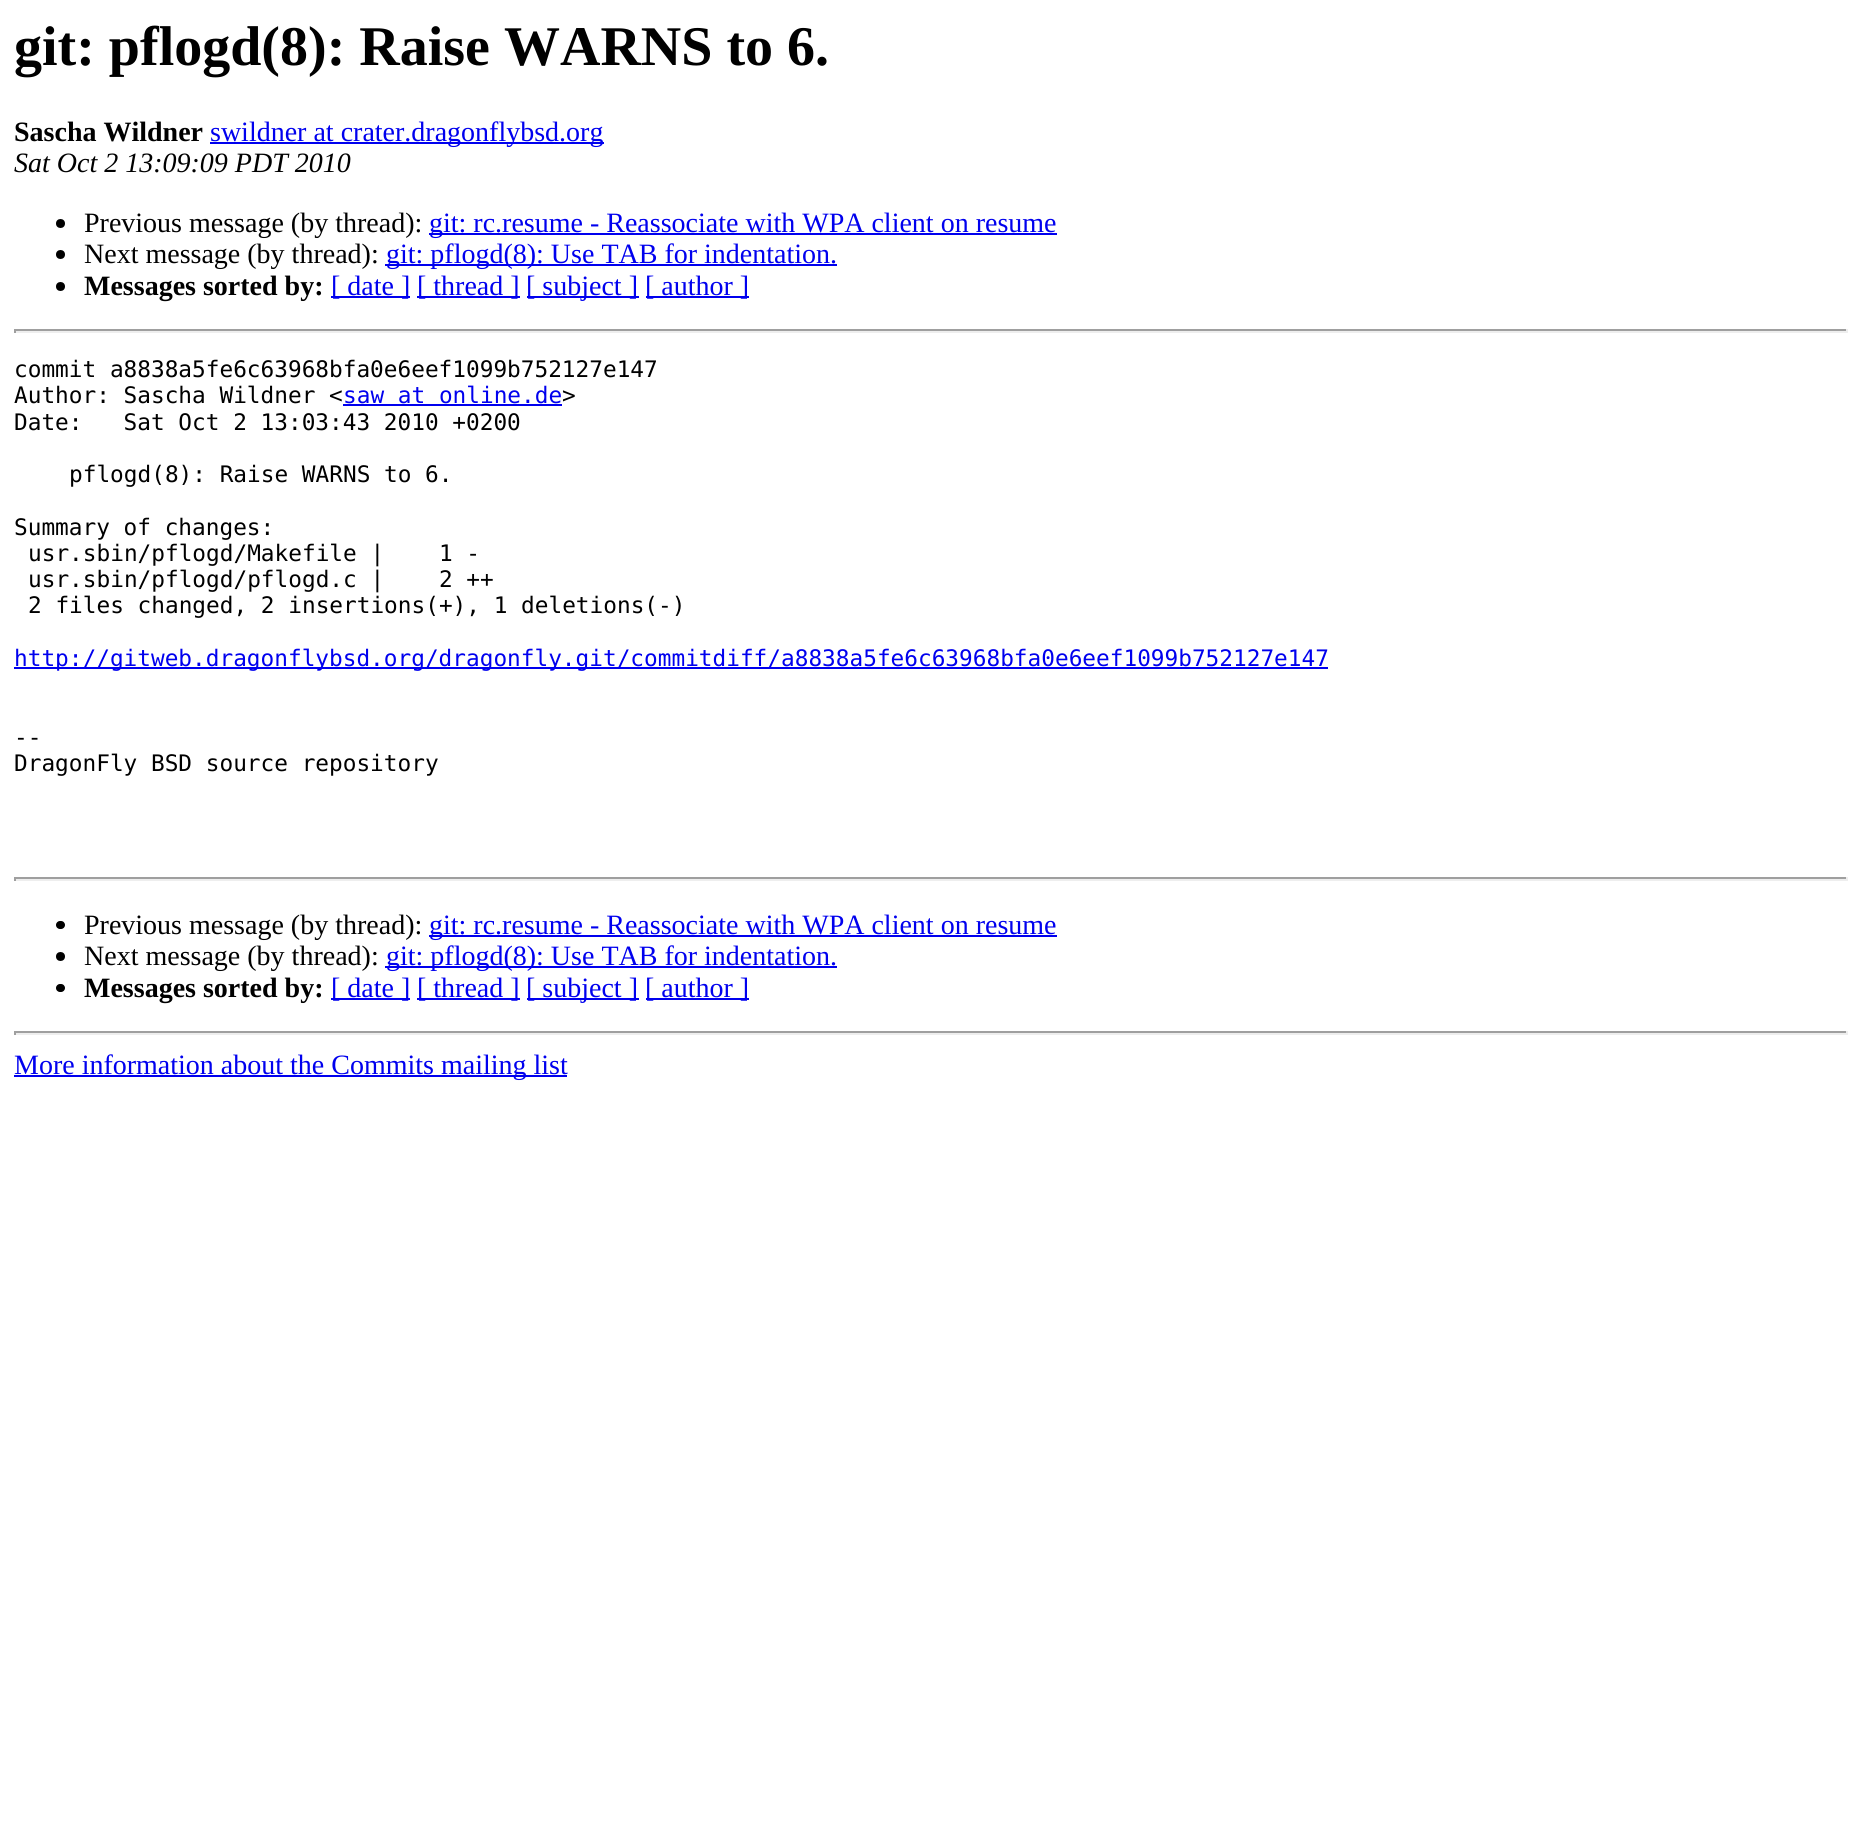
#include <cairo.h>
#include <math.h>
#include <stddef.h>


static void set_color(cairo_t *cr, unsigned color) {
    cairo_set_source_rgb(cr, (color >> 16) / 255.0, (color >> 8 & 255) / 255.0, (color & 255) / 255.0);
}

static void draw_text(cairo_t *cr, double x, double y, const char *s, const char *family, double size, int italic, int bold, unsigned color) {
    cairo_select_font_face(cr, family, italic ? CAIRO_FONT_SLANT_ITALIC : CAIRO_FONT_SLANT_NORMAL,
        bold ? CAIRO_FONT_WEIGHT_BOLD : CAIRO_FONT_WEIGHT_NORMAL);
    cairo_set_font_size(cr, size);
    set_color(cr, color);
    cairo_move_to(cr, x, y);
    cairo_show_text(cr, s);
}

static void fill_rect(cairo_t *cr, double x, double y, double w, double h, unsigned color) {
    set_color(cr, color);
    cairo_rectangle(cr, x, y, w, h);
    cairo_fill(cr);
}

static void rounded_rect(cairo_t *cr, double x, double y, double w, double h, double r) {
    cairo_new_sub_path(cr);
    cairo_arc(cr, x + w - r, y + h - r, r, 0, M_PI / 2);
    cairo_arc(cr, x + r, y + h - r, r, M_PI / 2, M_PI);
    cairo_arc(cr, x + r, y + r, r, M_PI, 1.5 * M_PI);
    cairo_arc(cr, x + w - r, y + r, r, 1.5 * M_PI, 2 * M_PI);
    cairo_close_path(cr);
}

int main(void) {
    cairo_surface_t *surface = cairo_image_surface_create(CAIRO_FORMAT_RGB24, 1861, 1827);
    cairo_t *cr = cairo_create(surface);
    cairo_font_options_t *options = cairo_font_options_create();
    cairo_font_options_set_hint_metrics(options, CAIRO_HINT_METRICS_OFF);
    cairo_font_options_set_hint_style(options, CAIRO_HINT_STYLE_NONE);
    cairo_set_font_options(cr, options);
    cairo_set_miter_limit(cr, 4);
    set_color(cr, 0xFFFFFF);
    cairo_paint(cr);
    draw_text(cr, 14, 65, "git: pflogd(8): Raise WARNS to 6.", "Liberation Serif", 56, 0, 1, 0x000000);
    draw_text(cr, 14, 141, "Sascha Wildner", "Liberation Serif", 28, 0, 1, 0x000000);
    fill_rect(cr, 210, 142, 394, 2, 0x0000EE);
    draw_text(cr, 210, 141, "swildner at crater.dragonflybsd.org", "Liberation Serif", 28, 0, 0, 0x0000EE);
    draw_text(cr, 14, 172, "Sat Oct 2 13:09:09 PDT 2010", "Liberation Serif", 28, 1, 0, 0x000000);
    cairo_new_path(cr);
    cairo_arc(cr, 60.5, 223.5, 4.5, 0, 2 * M_PI);
    cairo_fill(cr);
    draw_text(cr, 84, 232, "Previous message (by thread):", "Liberation Serif", 28, 0, 0, 0x000000);
    fill_rect(cr, 429, 233, 628, 2, 0x0000EE);
    draw_text(cr, 429, 232, "git: rc.resume - Reassociate with WPA client on resume", "Liberation Serif", 28, 0, 0, 0x0000EE);
    set_color(cr, 0x000000);
    cairo_new_path(cr);
    cairo_arc(cr, 60.5, 254.5, 4.5, 0, 2 * M_PI);
    cairo_fill(cr);
    draw_text(cr, 84, 263, "Next message (by thread):", "Liberation Serif", 28, 0, 0, 0x000000);
    fill_rect(cr, 385, 264, 452, 2, 0x0000EE);
    draw_text(cr, 386, 263, "git: pflogd(8): Use TAB for indentation.", "Liberation Serif", 28, 0, 0, 0x0000EE);
    set_color(cr, 0x000000);
    cairo_new_path(cr);
    cairo_arc(cr, 60.5, 286.5, 4.5, 0, 2 * M_PI);
    cairo_fill(cr);
    draw_text(cr, 84, 295, "Messages sorted by:", "Liberation Serif", 28, 0, 1, 0x000000);
    fill_rect(cr, 331, 296, 79, 2, 0x0000EE);
    draw_text(cr, 331, 295, "[ date ]", "Liberation Serif", 28, 0, 0, 0x0000EE);
    fill_rect(cr, 417, 296, 103, 2, 0x0000EE);
    draw_text(cr, 417, 295, "[ thread ]", "Liberation Serif", 28, 0, 0, 0x0000EE);
    fill_rect(cr, 527, 296, 112, 2, 0x0000EE);
    draw_text(cr, 526, 295, "[ subject ]", "Liberation Serif", 28, 0, 0, 0x0000EE);
    fill_rect(cr, 646, 296, 103, 2, 0x0000EE);
    draw_text(cr, 645, 295, "[ author ]", "Liberation Serif", 28, 0, 0, 0x0000EE);
    fill_rect(cr, 14, 329, 1834, 2, 0x9F9F9F);
    fill_rect(cr, 1846, 329, 2, 4, 0xEEEEEE);
    fill_rect(cr, 14, 331, 1834, 2, 0xEEEEEE);
    fill_rect(cr, 14, 329, 2, 4, 0x9F9F9F);
    draw_text(cr, 14, 377, "commit a8838a5fe6c63968bfa0e6eef1099b752127e147", "DejaVu Sans Mono", 22.75, 0, 0, 0x000000);
    draw_text(cr, 14, 403, "Author: Sascha Wildner <", "DejaVu Sans Mono", 22.75, 0, 0, 0x000000);
    draw_text(cr, 343, 403, "saw at online.de", "DejaVu Sans Mono", 22.75, 0, 0, 0x0000EE);
    fill_rect(cr, 343, 404, 219, 2, 0x0000EE);
    draw_text(cr, 562, 403, ">", "DejaVu Sans Mono", 22.75, 0, 0, 0x000000);
    draw_text(cr, 14, 430, "Date:   Sat Oct 2 13:03:43 2010 +0200", "DejaVu Sans Mono", 22.75, 0, 0, 0x000000);
    draw_text(cr, 69, 482, "pflogd(8): Raise WARNS to 6.", "DejaVu Sans Mono", 22.75, 0, 0, 0x000000);
    draw_text(cr, 14, 535, "Summary of changes:", "DejaVu Sans Mono", 22.75, 0, 0, 0x000000);
    draw_text(cr, 28, 561, "usr.sbin/pflogd/Makefile |    1 -", "DejaVu Sans Mono", 22.75, 0, 0, 0x000000);
    draw_text(cr, 28, 587, "usr.sbin/pflogd/pflogd.c |    2 ++", "DejaVu Sans Mono", 22.75, 0, 0, 0x000000);
    draw_text(cr, 28, 613, "2 files changed, 2 insertions(+), 1 deletions(-)", "DejaVu Sans Mono", 22.75, 0, 0, 0x000000);
    fill_rect(cr, 14, 667, 1314, 2, 0x0000EE);
    draw_text(cr, 14, 666, "http://gitweb.dragonflybsd.org/dragonfly.git/commitdiff/a8838a5fe6c63968bfa0e6eef1099b752127e147", "DejaVu Sans Mono", 22.75, 0, 0, 0x0000EE);
    draw_text(cr, 14, 745, "--", "DejaVu Sans Mono", 22.75, 0, 0, 0x000000);
    draw_text(cr, 14, 771, "DragonFly BSD source repository", "DejaVu Sans Mono", 22.75, 0, 0, 0x000000);
    fill_rect(cr, 14, 877, 1834, 2, 0x9F9F9F);
    fill_rect(cr, 1846, 877, 2, 4, 0xEEEEEE);
    fill_rect(cr, 14, 879, 1834, 2, 0xEEEEEE);
    fill_rect(cr, 14, 877, 2, 4, 0x9F9F9F);
    set_color(cr, 0x000000);
    rounded_rect(cr, 56, 921, 9, 8, 4);
    cairo_fill(cr);
    draw_text(cr, 84, 934, "Previous message (by thread):", "Liberation Serif", 28, 0, 0, 0x000000);
    fill_rect(cr, 429, 935, 628, 2, 0x0000EE);
    draw_text(cr, 429, 934, "git: rc.resume - Reassociate with WPA client on resume", "Liberation Serif", 28, 0, 0, 0x0000EE);
    set_color(cr, 0x000000);
    cairo_new_path(cr);
    cairo_arc(cr, 60.5, 956.5, 4.5, 0, 2 * M_PI);
    cairo_fill(cr);
    draw_text(cr, 84, 965, "Next message (by thread):", "Liberation Serif", 28, 0, 0, 0x000000);
    fill_rect(cr, 385, 966, 452, 2, 0x0000EE);
    draw_text(cr, 386, 965, "git: pflogd(8): Use TAB for indentation.", "Liberation Serif", 28, 0, 0, 0x0000EE);
    set_color(cr, 0x000000);
    rounded_rect(cr, 56, 984, 9, 8, 4);
    cairo_fill(cr);
    draw_text(cr, 84, 997, "Messages sorted by:", "Liberation Serif", 28, 0, 1, 0x000000);
    fill_rect(cr, 331, 998, 79, 2, 0x0000EE);
    draw_text(cr, 331, 997, "[ date ]", "Liberation Serif", 28, 0, 0, 0x0000EE);
    fill_rect(cr, 417, 998, 103, 2, 0x0000EE);
    draw_text(cr, 417, 997, "[ thread ]", "Liberation Serif", 28, 0, 0, 0x0000EE);
    fill_rect(cr, 527, 998, 112, 2, 0x0000EE);
    draw_text(cr, 526, 997, "[ subject ]", "Liberation Serif", 28, 0, 0, 0x0000EE);
    fill_rect(cr, 646, 998, 103, 2, 0x0000EE);
    draw_text(cr, 645, 997, "[ author ]", "Liberation Serif", 28, 0, 0, 0x0000EE);
    fill_rect(cr, 14, 1031, 1834, 2, 0x9F9F9F);
    fill_rect(cr, 1846, 1031, 2, 4, 0xEEEEEE);
    fill_rect(cr, 14, 1033, 1834, 2, 0xEEEEEE);
    fill_rect(cr, 14, 1031, 2, 4, 0x9F9F9F);
    fill_rect(cr, 14, 1075, 553, 2, 0x0000EE);
    draw_text(cr, 14, 1074, "More information about the Commits mailing list", "Liberation Serif", 28, 0, 0, 0x0000EE);
    cairo_surface_write_to_png(surface, "output.png");
    cairo_font_options_destroy(options);
    cairo_destroy(cr);
    cairo_surface_destroy(surface);
    return 0;
}
